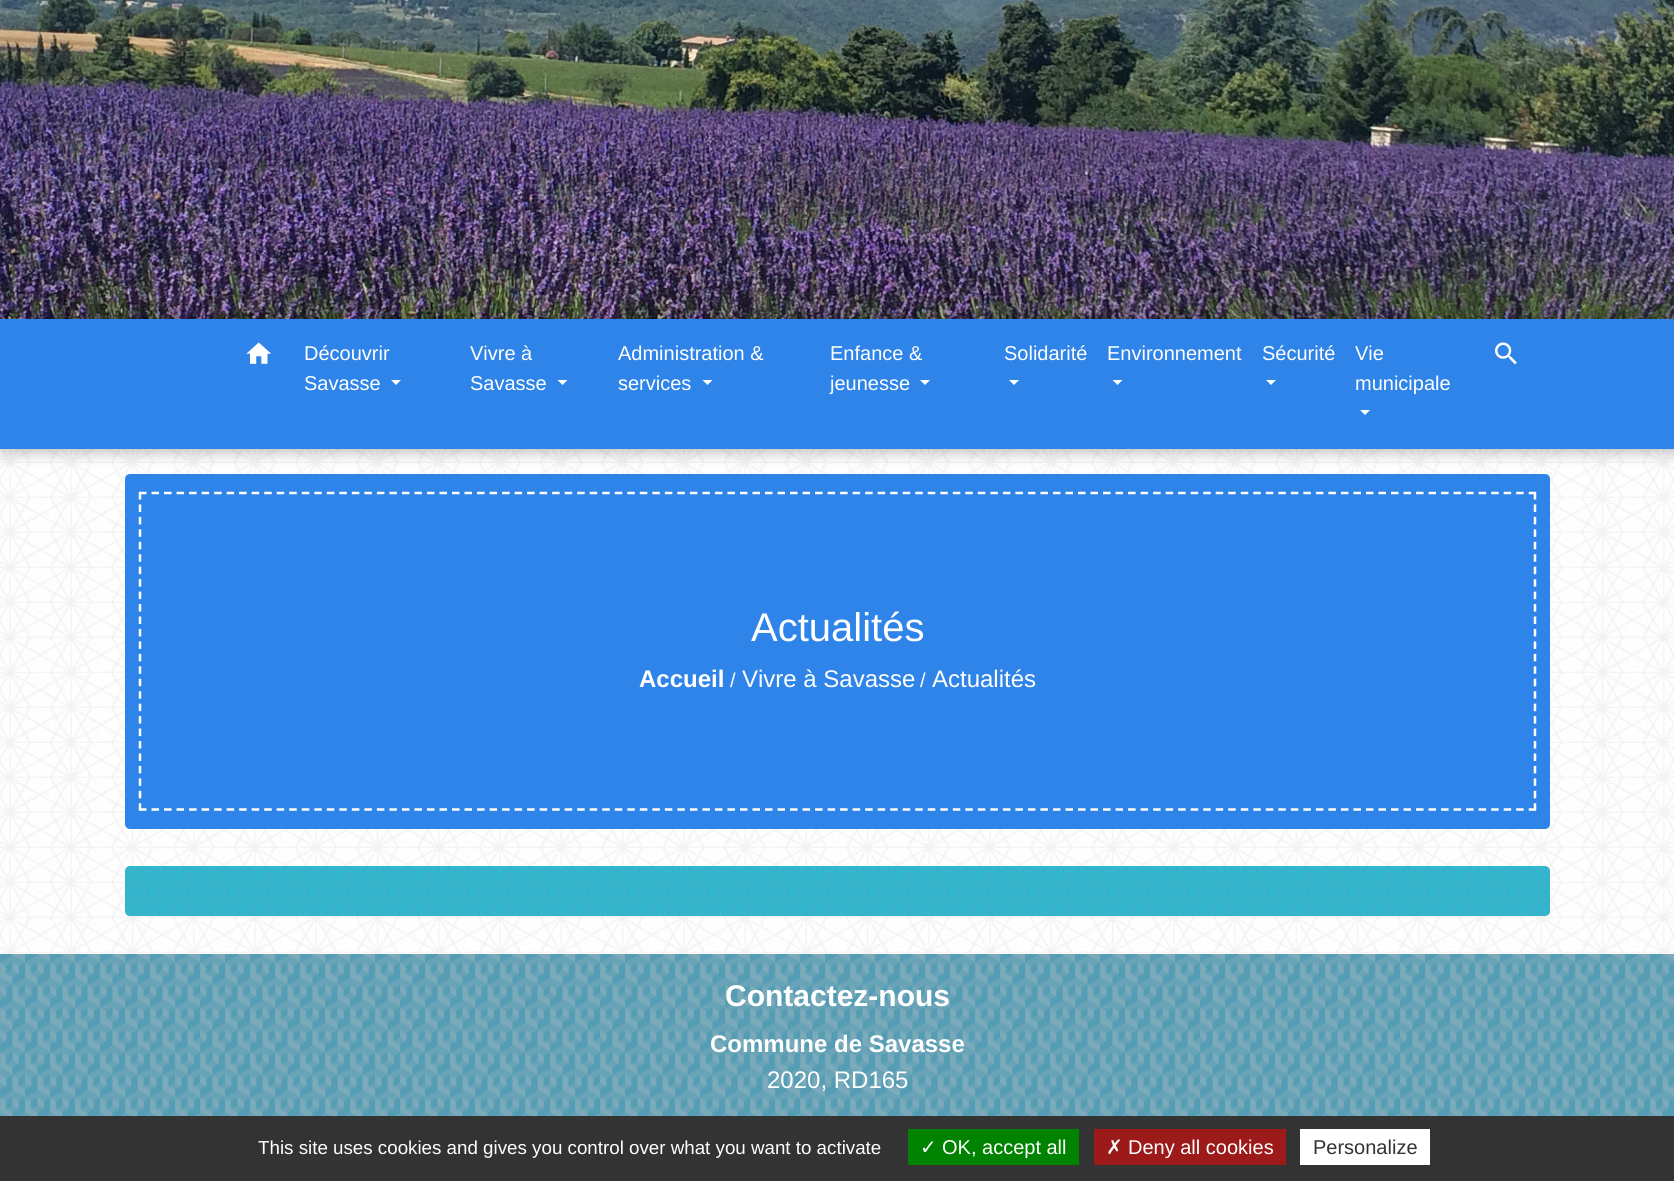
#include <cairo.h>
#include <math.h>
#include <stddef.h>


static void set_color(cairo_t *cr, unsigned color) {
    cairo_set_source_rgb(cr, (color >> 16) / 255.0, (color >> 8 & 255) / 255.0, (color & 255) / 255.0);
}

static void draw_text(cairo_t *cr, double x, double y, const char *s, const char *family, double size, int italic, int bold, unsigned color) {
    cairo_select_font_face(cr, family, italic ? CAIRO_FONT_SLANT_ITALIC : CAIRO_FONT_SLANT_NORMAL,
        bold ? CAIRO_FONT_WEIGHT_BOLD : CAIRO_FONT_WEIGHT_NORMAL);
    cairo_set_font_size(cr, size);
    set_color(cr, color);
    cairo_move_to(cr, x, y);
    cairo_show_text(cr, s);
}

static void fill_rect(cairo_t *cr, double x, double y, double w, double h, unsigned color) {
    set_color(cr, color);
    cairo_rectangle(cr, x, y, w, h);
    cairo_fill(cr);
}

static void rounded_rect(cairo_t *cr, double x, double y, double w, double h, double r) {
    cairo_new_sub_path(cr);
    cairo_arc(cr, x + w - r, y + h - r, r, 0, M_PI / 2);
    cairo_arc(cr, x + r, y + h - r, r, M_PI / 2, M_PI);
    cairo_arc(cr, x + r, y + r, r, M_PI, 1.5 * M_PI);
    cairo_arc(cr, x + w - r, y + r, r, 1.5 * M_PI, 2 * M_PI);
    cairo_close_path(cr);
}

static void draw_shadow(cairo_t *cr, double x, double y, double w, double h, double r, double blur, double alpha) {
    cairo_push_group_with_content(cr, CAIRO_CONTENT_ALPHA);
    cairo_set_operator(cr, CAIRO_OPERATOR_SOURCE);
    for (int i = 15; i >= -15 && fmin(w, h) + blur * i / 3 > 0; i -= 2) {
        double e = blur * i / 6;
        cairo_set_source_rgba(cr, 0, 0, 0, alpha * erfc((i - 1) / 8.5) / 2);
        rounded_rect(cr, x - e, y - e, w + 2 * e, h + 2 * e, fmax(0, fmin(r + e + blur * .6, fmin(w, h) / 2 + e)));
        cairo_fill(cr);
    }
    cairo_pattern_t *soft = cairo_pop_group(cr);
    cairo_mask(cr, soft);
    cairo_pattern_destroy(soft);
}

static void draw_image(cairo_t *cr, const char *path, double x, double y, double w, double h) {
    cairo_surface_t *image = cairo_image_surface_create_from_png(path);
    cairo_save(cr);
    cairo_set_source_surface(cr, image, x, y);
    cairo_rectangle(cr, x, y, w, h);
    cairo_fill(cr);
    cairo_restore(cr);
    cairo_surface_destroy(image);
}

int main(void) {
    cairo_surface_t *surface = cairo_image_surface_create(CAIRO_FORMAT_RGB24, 1674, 1181);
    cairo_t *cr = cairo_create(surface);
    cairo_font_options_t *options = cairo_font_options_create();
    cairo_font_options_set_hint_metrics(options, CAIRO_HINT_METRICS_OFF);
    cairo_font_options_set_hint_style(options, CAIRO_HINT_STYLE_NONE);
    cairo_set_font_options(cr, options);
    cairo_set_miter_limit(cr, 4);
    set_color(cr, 0xFFFFFF);
    cairo_paint(cr);
    draw_image(cr, "assets/img1.png", 0, 449, 1674, 505);
    draw_image(cr, "assets/img2.png", 0, 0, 1674, 319);
    set_color(cr, 0x2E84E8);
    rounded_rect(cr, 125, 474, 1425, 355, 5);
    cairo_fill(cr);
    set_color(cr, 0x000000);
    draw_shadow(cr, 3, 321, 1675, 130, 0, 8, 0.3);
    fill_rect(cr, 0, 319, 1674, 130, 0x2E84E8);
    draw_image(cr, "assets/img3.png", 246, 342, 25, 22);
    draw_text(cr, 304, 360, "Découvrir", "Liberation Sans", 20, 0, 0, 0xFFFFFF);
    draw_text(cr, 304, 390, "Savasse", "Liberation Sans", 20, 0, 0, 0xFFFFFF);
    cairo_new_path(cr);
    cairo_move_to(cr, 391, 380);
    cairo_line_to(cr, 401, 380);
    cairo_line_to(cr, 396, 385);
    cairo_close_path(cr);
    cairo_fill(cr);
    draw_text(cr, 470, 360, "Vivre à", "Liberation Sans", 20, 0, 0, 0xFFFFFF);
    draw_text(cr, 470, 390, "Savasse", "Liberation Sans", 20, 0, 0, 0xFFFFFF);
    cairo_new_path(cr);
    cairo_move_to(cr, 557.5, 380);
    cairo_line_to(cr, 567.5, 380);
    cairo_line_to(cr, 562.5, 385);
    cairo_close_path(cr);
    cairo_fill(cr);
    draw_text(cr, 618, 360, "Administration &", "Liberation Sans", 20, 0, 0, 0xFFFFFF);
    draw_text(cr, 618, 390, "services", "Liberation Sans", 20, 0, 0, 0xFFFFFF);
    cairo_new_path(cr);
    cairo_move_to(cr, 702.5, 380);
    cairo_line_to(cr, 712.5, 380);
    cairo_line_to(cr, 707.5, 385);
    cairo_close_path(cr);
    cairo_fill(cr);
    draw_text(cr, 830, 360, "Enfance &", "Liberation Sans", 20, 0, 0, 0xFFFFFF);
    draw_text(cr, 830, 390, "jeunesse", "Liberation Sans", 20, 0, 0, 0xFFFFFF);
    cairo_new_path(cr);
    cairo_move_to(cr, 920, 380);
    cairo_line_to(cr, 930, 380);
    cairo_line_to(cr, 925, 385);
    cairo_close_path(cr);
    cairo_fill(cr);
    draw_text(cr, 1004, 360, "Solidarité", "Liberation Sans", 20, 0, 0, 0xFFFFFF);
    cairo_new_path(cr);
    cairo_move_to(cr, 1009, 380);
    cairo_line_to(cr, 1019, 380);
    cairo_line_to(cr, 1014, 385);
    cairo_close_path(cr);
    cairo_fill(cr);
    draw_text(cr, 1107, 360, "Environnement", "Liberation Sans", 20, 0, 0, 0xFFFFFF);
    cairo_new_path(cr);
    cairo_move_to(cr, 1112.5, 380);
    cairo_line_to(cr, 1122.5, 380);
    cairo_line_to(cr, 1117.5, 385);
    cairo_close_path(cr);
    cairo_fill(cr);
    draw_text(cr, 1262, 360, "Sécurité", "Liberation Sans", 20, 0, 0, 0xFFFFFF);
    cairo_new_path(cr);
    cairo_move_to(cr, 1266, 380);
    cairo_line_to(cr, 1276, 380);
    cairo_line_to(cr, 1271, 385);
    cairo_close_path(cr);
    cairo_fill(cr);
    draw_text(cr, 1355, 360, "Vie", "Liberation Sans", 20, 0, 0, 0xFFFFFF);
    draw_text(cr, 1355, 390, "municipale", "Liberation Sans", 20, 0, 0, 0xFFFFFF);
    cairo_new_path(cr);
    cairo_move_to(cr, 1360, 410);
    cairo_line_to(cr, 1370, 410);
    cairo_line_to(cr, 1365, 415);
    cairo_close_path(cr);
    cairo_fill(cr);
    draw_image(cr, "assets/img4.png", 1495, 342, 22, 23);
    cairo_new_path(cr);
    cairo_move_to(cr, 139, 493);
    cairo_line_to(cr, 1536, 493);
    cairo_set_line_width(cr, 2.5);
    cairo_set_dash(cr, (double[]){7.5, 5.02}, 2, 0);
    cairo_stroke(cr);
    cairo_new_path(cr);
    cairo_move_to(cr, 1535, 492);
    cairo_line_to(cr, 1535, 810.5);
    cairo_set_dash(cr, (double[]){7.5, 4.95}, 2, 0);
    cairo_stroke(cr);
    cairo_new_path(cr);
    cairo_move_to(cr, 139, 809.5);
    cairo_line_to(cr, 1536, 809.5);
    cairo_set_dash(cr, (double[]){7.5, 5.02}, 2, 0);
    cairo_stroke(cr);
    cairo_new_path(cr);
    cairo_move_to(cr, 140, 492);
    cairo_line_to(cr, 140, 810.5);
    cairo_set_dash(cr, (double[]){7.5, 4.95}, 2, 0);
    cairo_stroke(cr);
    draw_text(cr, 751, 641, "Actualités", "Liberation Sans", 40, 0, 0, 0xFFFFFF);
    draw_text(cr, 639, 687, "Accueil", "Liberation Sans", 24, 0, 1, 0xFFFFFF);
    draw_text(cr, 730, 687, "/", "Liberation Sans", 20, 0, 0, 0xFFFFFF);
    draw_text(cr, 742, 687, "Vivre à Savasse", "Liberation Sans", 24, 0, 0, 0xFFFFFF);
    draw_text(cr, 920, 687, "/", "Liberation Sans", 20, 0, 0, 0xFFFFFF);
    draw_text(cr, 932, 687, "Actualités", "Liberation Sans", 24, 0, 0, 0xFFFFFF);
    set_color(cr, 0x2EBBD5);
    rounded_rect(cr, 125, 866, 1425, 50, 5);
    cairo_fill(cr);
    draw_image(cr, "assets/img5.png", 125, 867, 1425, 50);
    fill_rect(cr, 0, 954, 1674, 162, 0x559DB5);
    draw_image(cr, "assets/img6.png", 0, 954, 1674, 162);
    draw_text(cr, 725, 1006, "Contactez-nous", "Liberation Sans", 30, 0, 1, 0xFFFFFF);
    draw_text(cr, 710, 1052, "Commune de Savasse", "Liberation Sans", 24, 0, 1, 0xFFFFFF);
    draw_text(cr, 767, 1088, "2020, RD165", "Liberation Sans", 24, 0, 0, 0xFFFFFF);
    fill_rect(cr, 0, 1116, 1674, 65, 0x333333);
    draw_text(cr, 258, 1154, "This site uses cookies and gives you control over what you want to activate", "Liberation Sans", 18.75, 0, 0, 0xFFFFFF);
    fill_rect(cr, 908, 1129, 171, 36, 0x008300);
    draw_text(cr, 920, 1154, "✓", "DejaVu Sans", 20, 0, 0, 0xFFFFFF);
    draw_text(cr, 942, 1154, "OK, accept all", "Liberation Sans", 20, 0, 0, 0xFFFFFF);
    fill_rect(cr, 1094, 1129, 192, 36, 0x9C1A1A);
    draw_text(cr, 1106, 1154, "✗", "DejaVu Sans", 20, 0, 0, 0xFFFFFF);
    draw_text(cr, 1128, 1154, "Deny all cookies", "Liberation Sans", 20, 0, 0, 0xFFFFFF);
    fill_rect(cr, 1300, 1129, 130, 36, 0xFFFFFF);
    draw_text(cr, 1313, 1154, "Personalize", "Liberation Sans", 20, 0, 0, 0x333333);
    cairo_surface_write_to_png(surface, "output.png");
    cairo_font_options_destroy(options);
    cairo_destroy(cr);
    cairo_surface_destroy(surface);
    return 0;
}
